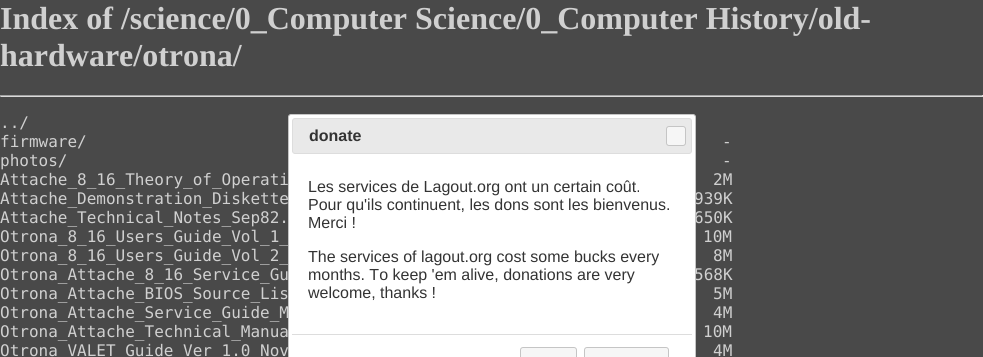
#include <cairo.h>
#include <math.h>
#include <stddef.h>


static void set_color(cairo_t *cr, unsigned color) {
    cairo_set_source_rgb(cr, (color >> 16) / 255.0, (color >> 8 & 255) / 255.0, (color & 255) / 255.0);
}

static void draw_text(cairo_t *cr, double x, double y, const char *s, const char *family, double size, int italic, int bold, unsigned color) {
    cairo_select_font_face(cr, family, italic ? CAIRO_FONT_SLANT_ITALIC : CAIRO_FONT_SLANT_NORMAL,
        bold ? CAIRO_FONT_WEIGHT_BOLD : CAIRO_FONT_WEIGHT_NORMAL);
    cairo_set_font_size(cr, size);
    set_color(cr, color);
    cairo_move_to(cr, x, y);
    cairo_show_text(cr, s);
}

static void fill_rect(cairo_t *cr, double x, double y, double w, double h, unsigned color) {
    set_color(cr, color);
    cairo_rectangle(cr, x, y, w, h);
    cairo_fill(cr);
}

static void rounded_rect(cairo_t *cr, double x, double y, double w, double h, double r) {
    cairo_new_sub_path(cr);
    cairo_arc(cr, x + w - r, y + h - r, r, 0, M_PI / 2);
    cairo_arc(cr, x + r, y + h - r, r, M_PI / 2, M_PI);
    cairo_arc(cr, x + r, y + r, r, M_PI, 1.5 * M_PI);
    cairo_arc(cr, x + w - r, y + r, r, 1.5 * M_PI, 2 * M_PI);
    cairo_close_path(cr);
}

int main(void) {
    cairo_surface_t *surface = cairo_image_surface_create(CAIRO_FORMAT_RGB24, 983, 357);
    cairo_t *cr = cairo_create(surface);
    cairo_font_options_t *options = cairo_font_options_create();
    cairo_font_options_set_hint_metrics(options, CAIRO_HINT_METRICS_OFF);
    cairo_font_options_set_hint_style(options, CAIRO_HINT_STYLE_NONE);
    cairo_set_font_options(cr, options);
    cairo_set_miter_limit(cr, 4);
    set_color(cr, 0x494949);
    cairo_paint(cr);
    draw_text(cr, 0, 29, "Index of /science/0_Computer Science/0_Computer History/old-", "Liberation Serif", 32, 0, 1, 0xD0D0D0);
    draw_text(cr, 0, 66, "hardware/otrona/", "Liberation Serif", 32, 0, 1, 0xD0D0D0);
    fill_rect(cr, 0, 95, 983, 1, 0xA2A2A2);
    fill_rect(cr, 982, 95, 1, 2, 0xDADADA);
    fill_rect(cr, 0, 96, 983, 1, 0xDADADA);
    fill_rect(cr, 0, 95, 1, 2, 0xA2A2A2);
    draw_text(cr, 0, 128, "../", "DejaVu Sans Mono", 16, 0, 0, 0xD0D0D0);
    draw_text(cr, 0, 147, "firmware/", "DejaVu Sans Mono", 16, 0, 0, 0xD0D0D0);
    draw_text(cr, 722, 147, "-", "DejaVu Sans Mono", 16, 0, 0, 0xD0D0D0);
    draw_text(cr, 0, 166, "photos/", "DejaVu Sans Mono", 16, 0, 0, 0xD0D0D0);
    draw_text(cr, 722, 166, "-", "DejaVu Sans Mono", 16, 0, 0, 0xD0D0D0);
    draw_text(cr, 0, 185, "Attache_8_16_Theory_of_Operati", "DejaVu Sans Mono", 16, 0, 0, 0xD0D0D0);
    draw_text(cr, 713, 185, "2M", "DejaVu Sans Mono", 16, 0, 0, 0xD0D0D0);
    draw_text(cr, 0, 204, "Attache_Demonstration_Diskette", "DejaVu Sans Mono", 16, 0, 0, 0xD0D0D0);
    draw_text(cr, 694, 204, "939K", "DejaVu Sans Mono", 16, 0, 0, 0xD0D0D0);
    draw_text(cr, 0, 223, "Attache_Technical_Notes_Sep82.", "DejaVu Sans Mono", 16, 0, 0, 0xD0D0D0);
    draw_text(cr, 694, 223, "650K", "DejaVu Sans Mono", 16, 0, 0, 0xD0D0D0);
    draw_text(cr, 0, 242, "Otrona_8_16_Users_Guide_Vol_1_", "DejaVu Sans Mono", 16, 0, 0, 0xD0D0D0);
    draw_text(cr, 703, 242, "10M", "DejaVu Sans Mono", 16, 0, 0, 0xD0D0D0);
    draw_text(cr, 0, 261, "Otrona_8_16_Users_Guide_Vol_2_", "DejaVu Sans Mono", 16, 0, 0, 0xD0D0D0);
    draw_text(cr, 713, 261, "8M", "DejaVu Sans Mono", 16, 0, 0, 0xD0D0D0);
    draw_text(cr, 0, 280, "Otrona_Attache_8_16_Service_Gu", "DejaVu Sans Mono", 16, 0, 0, 0xD0D0D0);
    draw_text(cr, 694, 280, "568K", "DejaVu Sans Mono", 16, 0, 0, 0xD0D0D0);
    draw_text(cr, 0, 299, "Otrona_Attache_BIOS_Source_Lis", "DejaVu Sans Mono", 16, 0, 0, 0xD0D0D0);
    draw_text(cr, 713, 299, "5M", "DejaVu Sans Mono", 16, 0, 0, 0xD0D0D0);
    draw_text(cr, 0, 318, "Otrona_Attache_Service_Guide_M", "DejaVu Sans Mono", 16, 0, 0, 0xD0D0D0);
    draw_text(cr, 713, 318, "4M", "DejaVu Sans Mono", 16, 0, 0, 0xD0D0D0);
    draw_text(cr, 0, 337, "Otrona_Attache_Technical_Manua", "DejaVu Sans Mono", 16, 0, 0, 0xD0D0D0);
    draw_text(cr, 703, 337, "10M", "DejaVu Sans Mono", 16, 0, 0, 0xD0D0D0);
    draw_text(cr, 0, 356, "Otrona_VALET_Guide_Ver_1.0_Nov", "DejaVu Sans Mono", 16, 0, 0, 0xD0D0D0);
    draw_text(cr, 713, 356, "4M", "DejaVu Sans Mono", 16, 0, 0, 0xD0D0D0);
    set_color(cr, 0xFFFFFF);
    rounded_rect(cr, 288.5, 114.5, 407, 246, 2.5);
    cairo_fill_preserve(cr);
    set_color(cr, 0xC5C5C5);
    cairo_set_line_width(cr, 1);
    cairo_stroke(cr);
    set_color(cr, 0xE9E9E9);
    rounded_rect(cr, 292.5, 118.5, 399, 35, 2.5);
    cairo_fill_preserve(cr);
    set_color(cr, 0xDDDDDD);
    cairo_stroke(cr);
    draw_text(cr, 309, 141, "donate", "Liberation Sans", 16, 0, 1, 0x333333);
    set_color(cr, 0xF6F6F6);
    rounded_rect(cr, 666.5, 126.5, 19, 19, 2.5);
    cairo_fill_preserve(cr);
    set_color(cr, 0xC5C5C5);
    cairo_stroke(cr);
    draw_text(cr, 308, 192, "Les services de Lagout.org ont un certain coût.", "Liberation Sans", 16, 0, 0, 0x333333);
    draw_text(cr, 308, 210, "Pour qu'ils continuent, les dons sont les bienvenus.", "Liberation Sans", 16, 0, 0, 0x333333);
    draw_text(cr, 308, 228, "Merci !", "Liberation Sans", 16, 0, 0, 0x333333);
    draw_text(cr, 308, 262, "The services of lagout.org cost some bucks every", "Liberation Sans", 16, 0, 0, 0x333333);
    draw_text(cr, 308, 280, "months. To keep 'em alive, donations are very", "Liberation Sans", 16, 0, 0, 0x333333);
    draw_text(cr, 308, 298, "welcome, thanks !", "Liberation Sans", 16, 0, 0, 0x333333);
    fill_rect(cr, 292, 334, 400, 1, 0xDDDDDD);
    set_color(cr, 0xF6F6F6);
    rounded_rect(cr, 520.5, 347.5, 56, 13, 2.5);
    cairo_fill_preserve(cr);
    set_color(cr, 0xC5C5C5);
    cairo_stroke(cr);
    set_color(cr, 0xF6F6F6);
    rounded_rect(cr, 584.5, 347.5, 84, 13, 2.5);
    cairo_fill_preserve(cr);
    set_color(cr, 0xC5C5C5);
    cairo_stroke(cr);
    cairo_surface_write_to_png(surface, "output.png");
    cairo_font_options_destroy(options);
    cairo_destroy(cr);
    cairo_surface_destroy(surface);
    return 0;
}
